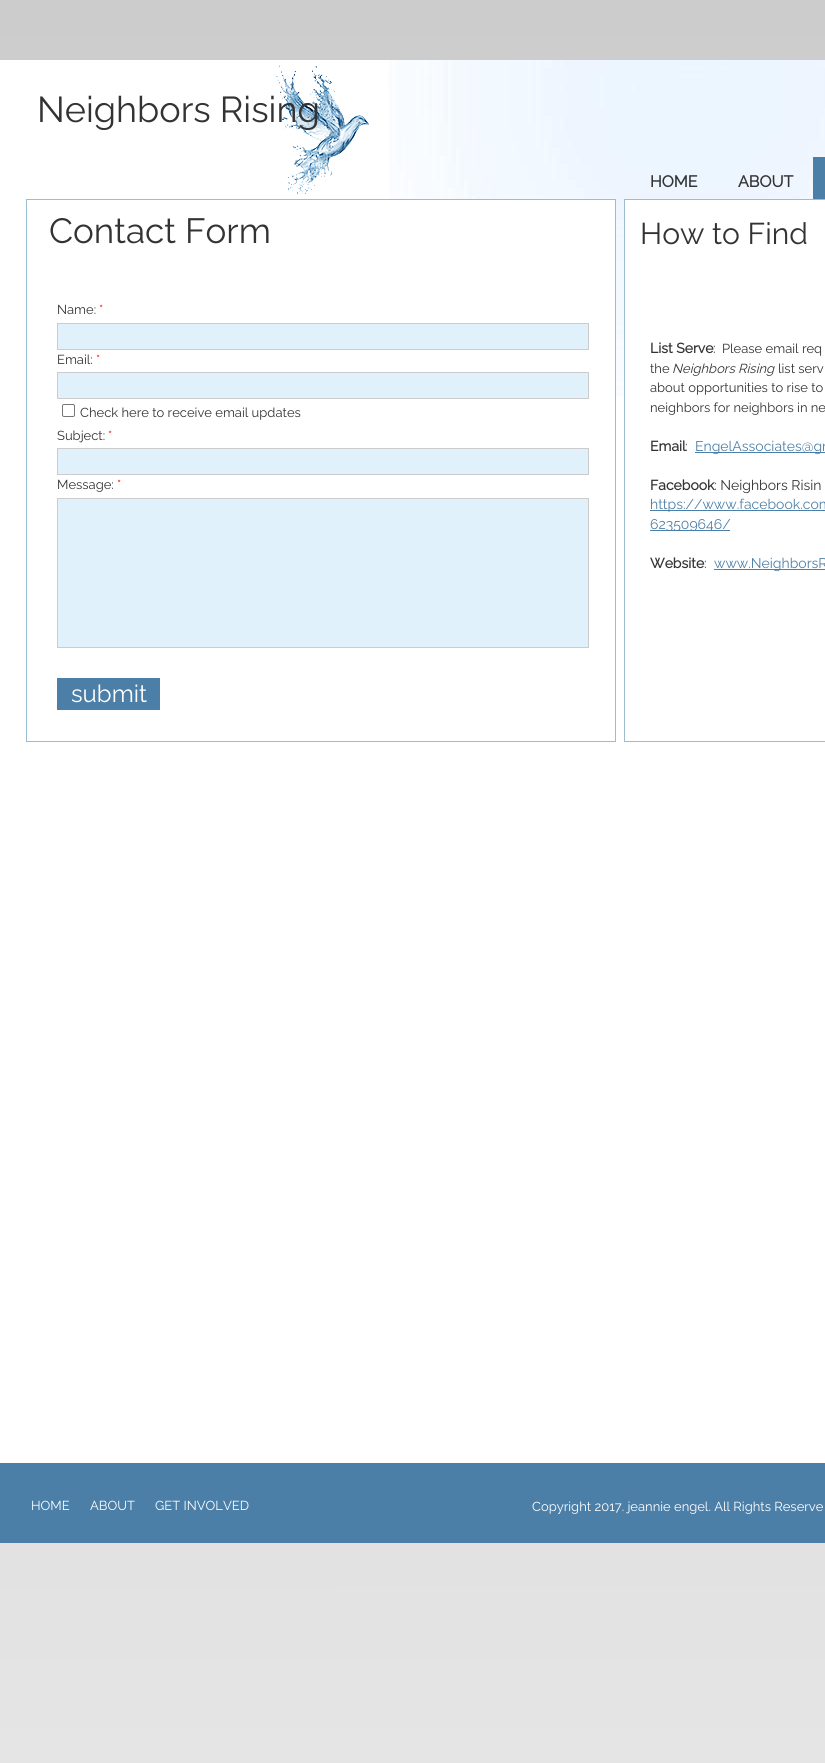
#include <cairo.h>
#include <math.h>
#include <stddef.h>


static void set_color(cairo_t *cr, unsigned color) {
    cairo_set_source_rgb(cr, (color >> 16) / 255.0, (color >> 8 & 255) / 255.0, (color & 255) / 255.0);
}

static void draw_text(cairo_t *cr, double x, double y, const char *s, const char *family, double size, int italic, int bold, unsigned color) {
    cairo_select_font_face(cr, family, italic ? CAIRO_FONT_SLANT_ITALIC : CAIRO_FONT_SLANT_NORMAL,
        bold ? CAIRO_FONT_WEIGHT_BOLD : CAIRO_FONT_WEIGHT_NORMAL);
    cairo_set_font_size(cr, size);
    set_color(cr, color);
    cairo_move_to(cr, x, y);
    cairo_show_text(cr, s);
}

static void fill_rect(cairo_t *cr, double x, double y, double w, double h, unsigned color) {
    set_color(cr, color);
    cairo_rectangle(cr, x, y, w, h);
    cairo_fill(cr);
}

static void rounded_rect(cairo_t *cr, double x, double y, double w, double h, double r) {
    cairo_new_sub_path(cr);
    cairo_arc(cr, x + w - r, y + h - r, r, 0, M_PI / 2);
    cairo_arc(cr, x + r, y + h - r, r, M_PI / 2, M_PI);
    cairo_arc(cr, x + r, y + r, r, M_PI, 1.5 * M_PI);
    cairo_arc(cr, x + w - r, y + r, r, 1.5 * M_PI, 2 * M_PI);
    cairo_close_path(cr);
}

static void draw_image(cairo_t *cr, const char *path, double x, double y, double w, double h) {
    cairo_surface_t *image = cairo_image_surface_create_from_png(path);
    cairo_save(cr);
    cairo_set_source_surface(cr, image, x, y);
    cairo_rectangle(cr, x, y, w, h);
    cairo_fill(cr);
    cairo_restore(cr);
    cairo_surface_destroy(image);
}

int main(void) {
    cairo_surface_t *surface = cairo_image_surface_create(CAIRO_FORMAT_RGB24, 825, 1763);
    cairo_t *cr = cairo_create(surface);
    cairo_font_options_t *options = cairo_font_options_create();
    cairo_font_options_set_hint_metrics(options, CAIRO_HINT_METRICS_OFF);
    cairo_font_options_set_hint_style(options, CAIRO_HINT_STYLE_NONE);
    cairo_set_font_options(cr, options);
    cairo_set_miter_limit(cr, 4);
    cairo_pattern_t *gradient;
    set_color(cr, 0xFFFFFF);
    cairo_paint(cr);
    gradient = cairo_pattern_create_linear(412, 0, 413, 1763);
    cairo_pattern_add_color_stop_rgba(gradient, 0, 0.8, 0.8, 0.8, 1);
    cairo_pattern_add_color_stop_rgba(gradient, 1, 0.898, 0.898, 0.898, 1);
    cairo_set_source(cr, gradient);
    cairo_pattern_destroy(gradient);
    cairo_rectangle(cr, 0, 0, 825, 1763);
    cairo_fill(cr);
    fill_rect(cr, 0, 60, 825, 1403, 0xFFFFFF);
    draw_image(cr, "assets/img1.png", 276, 65, 93, 129);
    draw_text(cr, 37, 122, "Neighbors Rising", "Raleway Thin", 36, 0, 0, 0x333333);
    draw_image(cr, "assets/img2.png", 389, 60, 436, 336);
    draw_text(cr, 650, 187, "HOME", "Raleway", 16, 0, 1, 0x333333);
    draw_text(cr, 738, 187, "ABOUT", "Raleway", 16, 0, 1, 0x333333);
    fill_rect(cr, 813, 157, 12, 42, 0x4B7FA8);
    fill_rect(cr, 389, 200, 226, 196, 0xFFFFFF);
    cairo_rectangle(cr, 26.5, 199.5, 589, 542);
    set_color(cr, 0x9ABDD3);
    cairo_set_line_width(cr, 1);
    cairo_stroke(cr);
    fill_rect(cr, 625, 200, 200, 196, 0xFFFFFF);
    cairo_rectangle(cr, 624.5, 199.5, 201, 542);
    set_color(cr, 0x9ABDD3);
    cairo_stroke(cr);
    draw_text(cr, 49, 243, "Contact Form", "Raleway Thin", 35, 0, 0, 0x333333);
    draw_text(cr, 640, 244, "How to Find", "Raleway Thin", 30, 0, 0, 0x333333);
    draw_text(cr, 57, 314, "Name:", "Raleway Thin", 13, 0, 0, 0x333333);
    draw_text(cr, 99, 314, "*", "Raleway Thin", 13, 0, 0, 0xFF0000);
    set_color(cr, 0xE0F1FC);
    cairo_rectangle(cr, 57.5, 323.5, 531, 26);
    cairo_fill_preserve(cr);
    set_color(cr, 0xCCCCCC);
    cairo_stroke(cr);
    draw_text(cr, 57, 364, "Email:", "Raleway Thin", 13, 0, 0, 0x333333);
    draw_text(cr, 96, 364, "*", "Raleway Thin", 13, 0, 0, 0xFF0000);
    set_color(cr, 0xE0F1FC);
    cairo_rectangle(cr, 57.5, 372.5, 531, 26);
    cairo_fill_preserve(cr);
    set_color(cr, 0xCCCCCC);
    cairo_stroke(cr);
    rounded_rect(cr, 62.5, 404.5, 12, 12, 1.5);
    set_color(cr, 0x767676);
    cairo_stroke(cr);
    draw_text(cr, 80, 417, "Check here to receive email updates", "Raleway Thin", 13, 0, 0, 0x333333);
    draw_text(cr, 57, 440, "Subject:", "Raleway Thin", 13, 0, 0, 0x333333);
    draw_text(cr, 108, 440, "*", "Raleway Thin", 13, 0, 0, 0xFF0000);
    set_color(cr, 0xE0F1FC);
    cairo_rectangle(cr, 57.5, 448.5, 531, 26);
    cairo_fill_preserve(cr);
    set_color(cr, 0xCCCCCC);
    cairo_stroke(cr);
    draw_text(cr, 57, 489, "Message:", "Raleway Thin", 13, 0, 0, 0x333333);
    draw_text(cr, 117, 489, "*", "Raleway Thin", 13, 0, 0, 0xFF0000);
    set_color(cr, 0xE0F1FC);
    cairo_rectangle(cr, 57.5, 498.5, 531, 149);
    cairo_fill_preserve(cr);
    set_color(cr, 0xCCCCCC);
    cairo_stroke(cr);
    fill_rect(cr, 57, 678, 103, 32, 0x4B7FA8);
    draw_text(cr, 71, 702, "submit", "Raleway Thin", 24, 0, 0, 0xFFFFFF);
    draw_text(cr, 650, 353, "List Serve", "Raleway", 14, 0, 1, 0x333333);
    draw_text(cr, 713, 353, ":", "Raleway Thin", 14, 0, 0, 0x333333);
    draw_text(cr, 722, 353, "Please email req", "Raleway Thin", 13, 0, 0, 0x333333);
    draw_text(cr, 650, 373, "the", "Raleway Thin", 13, 0, 0, 0x333333);
    draw_text(cr, 672, 373, "Neighbors Rising", "Raleway Thin", 13, 1, 0, 0x333333);
    draw_text(cr, 778, 373, "list serv", "Raleway Thin", 13, 0, 0, 0x333333);
    draw_text(cr, 650, 392, "about opportunities to rise to", "Raleway Thin", 13, 0, 0, 0x333333);
    draw_text(cr, 650, 412, "neighbors for neighbors in ne", "Raleway Thin", 13, 0, 0, 0x333333);
    draw_text(cr, 650, 451, "Email", "Raleway", 14, 0, 1, 0x333333);
    draw_text(cr, 685, 451, ":", "Raleway Thin", 14, 0, 0, 0x333333);
    fill_rect(cr, 695, 452, 130, 1, 0x4B7FA8);
    draw_text(cr, 695, 451, "EngelAssociates@gm", "Raleway Thin", 14, 0, 0, 0x4B7FA8);
    draw_text(cr, 650, 490, "Facebook", "Raleway", 14, 0, 1, 0x333333);
    draw_text(cr, 714, 490, ": Neighbors Risin", "Raleway Thin", 14, 0, 0, 0x333333);
    fill_rect(cr, 650, 510, 175, 1, 0x4B7FA8);
    draw_text(cr, 650, 509, "https://www.facebook.com", "Raleway Thin", 14, 0, 0, 0x4B7FA8);
    fill_rect(cr, 650, 530, 80, 1, 0x4B7FA8);
    draw_text(cr, 650, 529, "623509646/", "Raleway Thin", 14, 0, 0, 0x4B7FA8);
    draw_text(cr, 650, 568, "Website", "Raleway", 14, 0, 1, 0x333333);
    draw_text(cr, 704, 568, ":", "Raleway Thin", 14, 0, 0, 0x333333);
    fill_rect(cr, 714, 569, 111, 1, 0x4B7FA8);
    draw_text(cr, 714, 568, "www.NeighborsR", "Raleway Thin", 14, 0, 0, 0x4B7FA8);
    fill_rect(cr, 0, 1463, 825, 80, 0x4B7FA8);
    draw_text(cr, 31, 1510, "HOME", "Raleway Thin", 13, 0, 0, 0xFFFFFF);
    draw_text(cr, 90, 1510, "ABOUT", "Raleway Thin", 13, 0, 0, 0xFFFFFF);
    draw_text(cr, 155, 1510, "GET INVOLVED", "Raleway Thin", 13, 0, 0, 0xFFFFFF);
    draw_text(cr, 532, 1511, "Copyright 2017. jeannie engel. All Rights Reserve", "Raleway Thin", 13, 0, 0, 0xFFFFFF);
    cairo_surface_write_to_png(surface, "output.png");
    cairo_font_options_destroy(options);
    cairo_destroy(cr);
    cairo_surface_destroy(surface);
    return 0;
}
